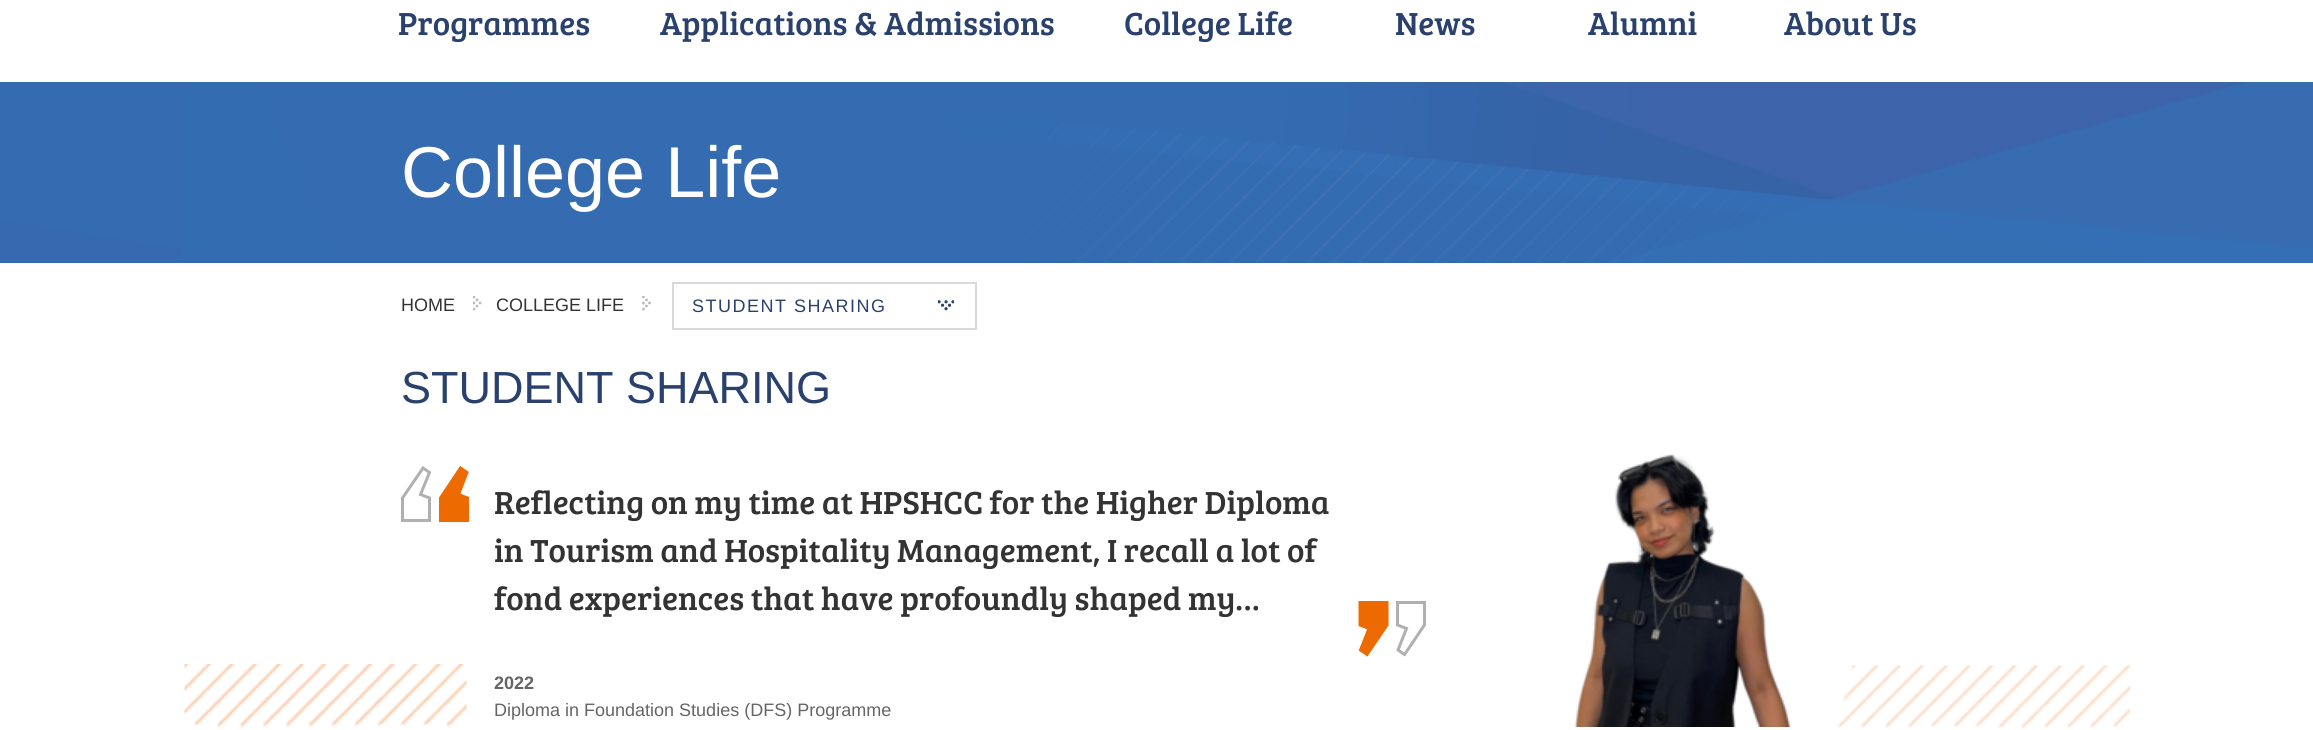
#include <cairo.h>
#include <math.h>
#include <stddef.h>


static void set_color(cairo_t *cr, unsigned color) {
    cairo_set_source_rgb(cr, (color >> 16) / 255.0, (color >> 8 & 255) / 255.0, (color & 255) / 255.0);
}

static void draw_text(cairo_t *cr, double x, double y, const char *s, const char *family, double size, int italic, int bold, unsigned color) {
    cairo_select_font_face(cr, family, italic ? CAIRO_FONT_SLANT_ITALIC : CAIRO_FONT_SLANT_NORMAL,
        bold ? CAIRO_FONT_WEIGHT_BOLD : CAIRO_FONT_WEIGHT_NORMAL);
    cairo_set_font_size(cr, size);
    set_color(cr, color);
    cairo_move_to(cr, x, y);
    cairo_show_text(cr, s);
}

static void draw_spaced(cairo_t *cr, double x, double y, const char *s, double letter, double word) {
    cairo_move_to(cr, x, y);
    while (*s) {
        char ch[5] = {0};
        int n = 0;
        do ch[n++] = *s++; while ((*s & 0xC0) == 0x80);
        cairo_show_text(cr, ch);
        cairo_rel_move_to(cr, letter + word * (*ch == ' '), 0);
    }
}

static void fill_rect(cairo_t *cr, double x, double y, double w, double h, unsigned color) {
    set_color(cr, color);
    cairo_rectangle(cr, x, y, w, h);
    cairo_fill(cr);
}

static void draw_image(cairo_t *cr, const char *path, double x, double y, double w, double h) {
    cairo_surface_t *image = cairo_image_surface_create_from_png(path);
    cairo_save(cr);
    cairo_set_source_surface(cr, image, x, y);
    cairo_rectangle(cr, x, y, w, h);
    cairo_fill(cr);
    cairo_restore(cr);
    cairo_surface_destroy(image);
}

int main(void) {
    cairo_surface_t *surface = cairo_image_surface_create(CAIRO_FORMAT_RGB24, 2313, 730);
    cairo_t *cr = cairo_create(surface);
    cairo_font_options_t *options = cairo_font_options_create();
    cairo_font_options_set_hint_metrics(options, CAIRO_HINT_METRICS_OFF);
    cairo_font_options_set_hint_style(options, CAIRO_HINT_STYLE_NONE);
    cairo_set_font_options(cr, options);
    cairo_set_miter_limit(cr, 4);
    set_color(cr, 0xFFFFFF);
    cairo_paint(cr);
    draw_text(cr, 398, 35, "Programmes", "Bree Serif", 33, 0, 0, 0x29416C);
    draw_text(cr, 660, 35, "Applications & Admissions", "Bree Serif", 33, 0, 0, 0x29416C);
    draw_text(cr, 1124, 35, "College Life", "Bree Serif", 33, 0, 0, 0x29416C);
    draw_text(cr, 1395, 35, "News", "Bree Serif", 33, 0, 0, 0x29416C);
    draw_text(cr, 1588, 35, "Alumni", "Bree Serif", 33, 0, 0, 0x29416C);
    draw_text(cr, 1784, 35, "About Us", "Bree Serif", 33, 0, 0, 0x29416C);
    fill_rect(cr, 0, 261, 2313, 2, 0x376CB1);
    draw_image(cr, "assets/img1.png", 0, 82, 2313, 180);
    draw_text(cr, 401, 197, "College Life", "Liberation Sans", 72, 0, 0, 0xFFFFFF);
    draw_text(cr, 401, 311, "HOME", "Liberation Sans", 18, 0, 0, 0x333333);
    draw_image(cr, "assets/img2.png", 473, 296, 9, 15);
    draw_text(cr, 496, 311, "COLLEGE LIFE", "Liberation Sans", 18, 0, 0, 0x333333);
    draw_image(cr, "assets/img3.png", 642, 296, 9, 15);
    cairo_rectangle(cr, 673, 283, 303, 46);
    set_color(cr, 0xD9D9D9);
    cairo_stroke(cr);
    set_color(cr, 0x29416C);
    draw_spaced(cr, 692, 312, "STUDENT SHARING", 1.5, 0);
    draw_image(cr, "assets/img4.png", 938, 300, 16, 11);
    draw_text(cr, 401, 403, "STUDENT SHARING", "Liberation Sans", 45, 0, 0, 0x29416C);
    cairo_new_path(cr);
    cairo_move_to(cr, 429.5, 520.5);
    cairo_line_to(cr, 402.5, 520.5);
    cairo_line_to(cr, 402.5, 498);
    cairo_line_to(cr, 423, 468);
    cairo_line_to(cr, 429.5, 472.5);
    cairo_line_to(cr, 420.5, 494.5);
    cairo_line_to(cr, 429.5, 498);
    cairo_close_path(cr);
    set_color(cr, 0xB0B0B0);
    cairo_set_line_width(cr, 3);
    cairo_stroke(cr);
    set_color(cr, 0xED6A00);
    cairo_new_path(cr);
    cairo_move_to(cr, 468, 521);
    cairo_line_to(cr, 441, 521);
    cairo_line_to(cr, 441, 498);
    cairo_line_to(cr, 461, 468);
    cairo_line_to(cr, 467, 473);
    cairo_line_to(cr, 458, 495);
    cairo_line_to(cr, 468, 498);
    cairo_close_path(cr);
    cairo_fill(cr);
    cairo_new_path(cr);
    cairo_move_to(cr, 467.5, 520.5);
    cairo_line_to(cr, 440.5, 520.5);
    cairo_line_to(cr, 440.5, 498);
    cairo_line_to(cr, 460.5, 468);
    cairo_line_to(cr, 467, 472.5);
    cairo_line_to(cr, 458.5, 494.5);
    cairo_line_to(cr, 467.5, 498);
    cairo_close_path(cr);
    cairo_stroke(cr);
    draw_text(cr, 494, 514, "Reflecting on my time at HPSHCC for the Higher Diploma", "Bree Serif", 33, 0, 0, 0x333333);
    draw_text(cr, 494, 562, "in Tourism and Hospitality Management, I recall a lot of", "Bree Serif", 33, 0, 0, 0x333333);
    draw_text(cr, 494, 610, "fond experiences that have profoundly shaped my…", "Bree Serif", 33, 0, 0, 0x333333);
    set_color(cr, 0xED6A00);
    cairo_new_path(cr);
    cairo_move_to(cr, 1360, 602);
    cairo_line_to(cr, 1387, 602);
    cairo_line_to(cr, 1387, 625);
    cairo_line_to(cr, 1367, 655);
    cairo_line_to(cr, 1360, 650);
    cairo_line_to(cr, 1369, 628);
    cairo_line_to(cr, 1360, 625);
    cairo_close_path(cr);
    cairo_fill(cr);
    cairo_new_path(cr);
    cairo_move_to(cr, 1360, 602.5);
    cairo_line_to(cr, 1387, 602.5);
    cairo_line_to(cr, 1387, 625);
    cairo_line_to(cr, 1367, 654.5);
    cairo_line_to(cr, 1360.5, 650);
    cairo_line_to(cr, 1369, 628.5);
    cairo_line_to(cr, 1360, 625);
    cairo_close_path(cr);
    cairo_stroke(cr);
    cairo_new_path(cr);
    cairo_move_to(cr, 1397.5, 602.5);
    cairo_line_to(cr, 1424.5, 602.5);
    cairo_line_to(cr, 1424.5, 625);
    cairo_line_to(cr, 1404.5, 654.5);
    cairo_line_to(cr, 1398, 650);
    cairo_line_to(cr, 1406.5, 628.5);
    cairo_line_to(cr, 1397.5, 625);
    cairo_close_path(cr);
    set_color(cr, 0xB0B0B0);
    cairo_stroke(cr);
    draw_image(cr, "assets/img5.png", 184, 664, 283, 65);
    draw_text(cr, 494, 689, "2022", "Liberation Sans", 18, 0, 1, 0x656565);
    draw_text(cr, 494, 716, "Diploma in Foundation Studies (DFS) Programme", "Liberation Sans", 18, 0, 0, 0x656565);
    draw_image(cr, "assets/img6.png", 1574, 454, 218, 273);
    draw_image(cr, "assets/img7.png", 1837, 665, 294, 64);
    cairo_surface_write_to_png(surface, "output.png");
    cairo_font_options_destroy(options);
    cairo_destroy(cr);
    cairo_surface_destroy(surface);
    return 0;
}
